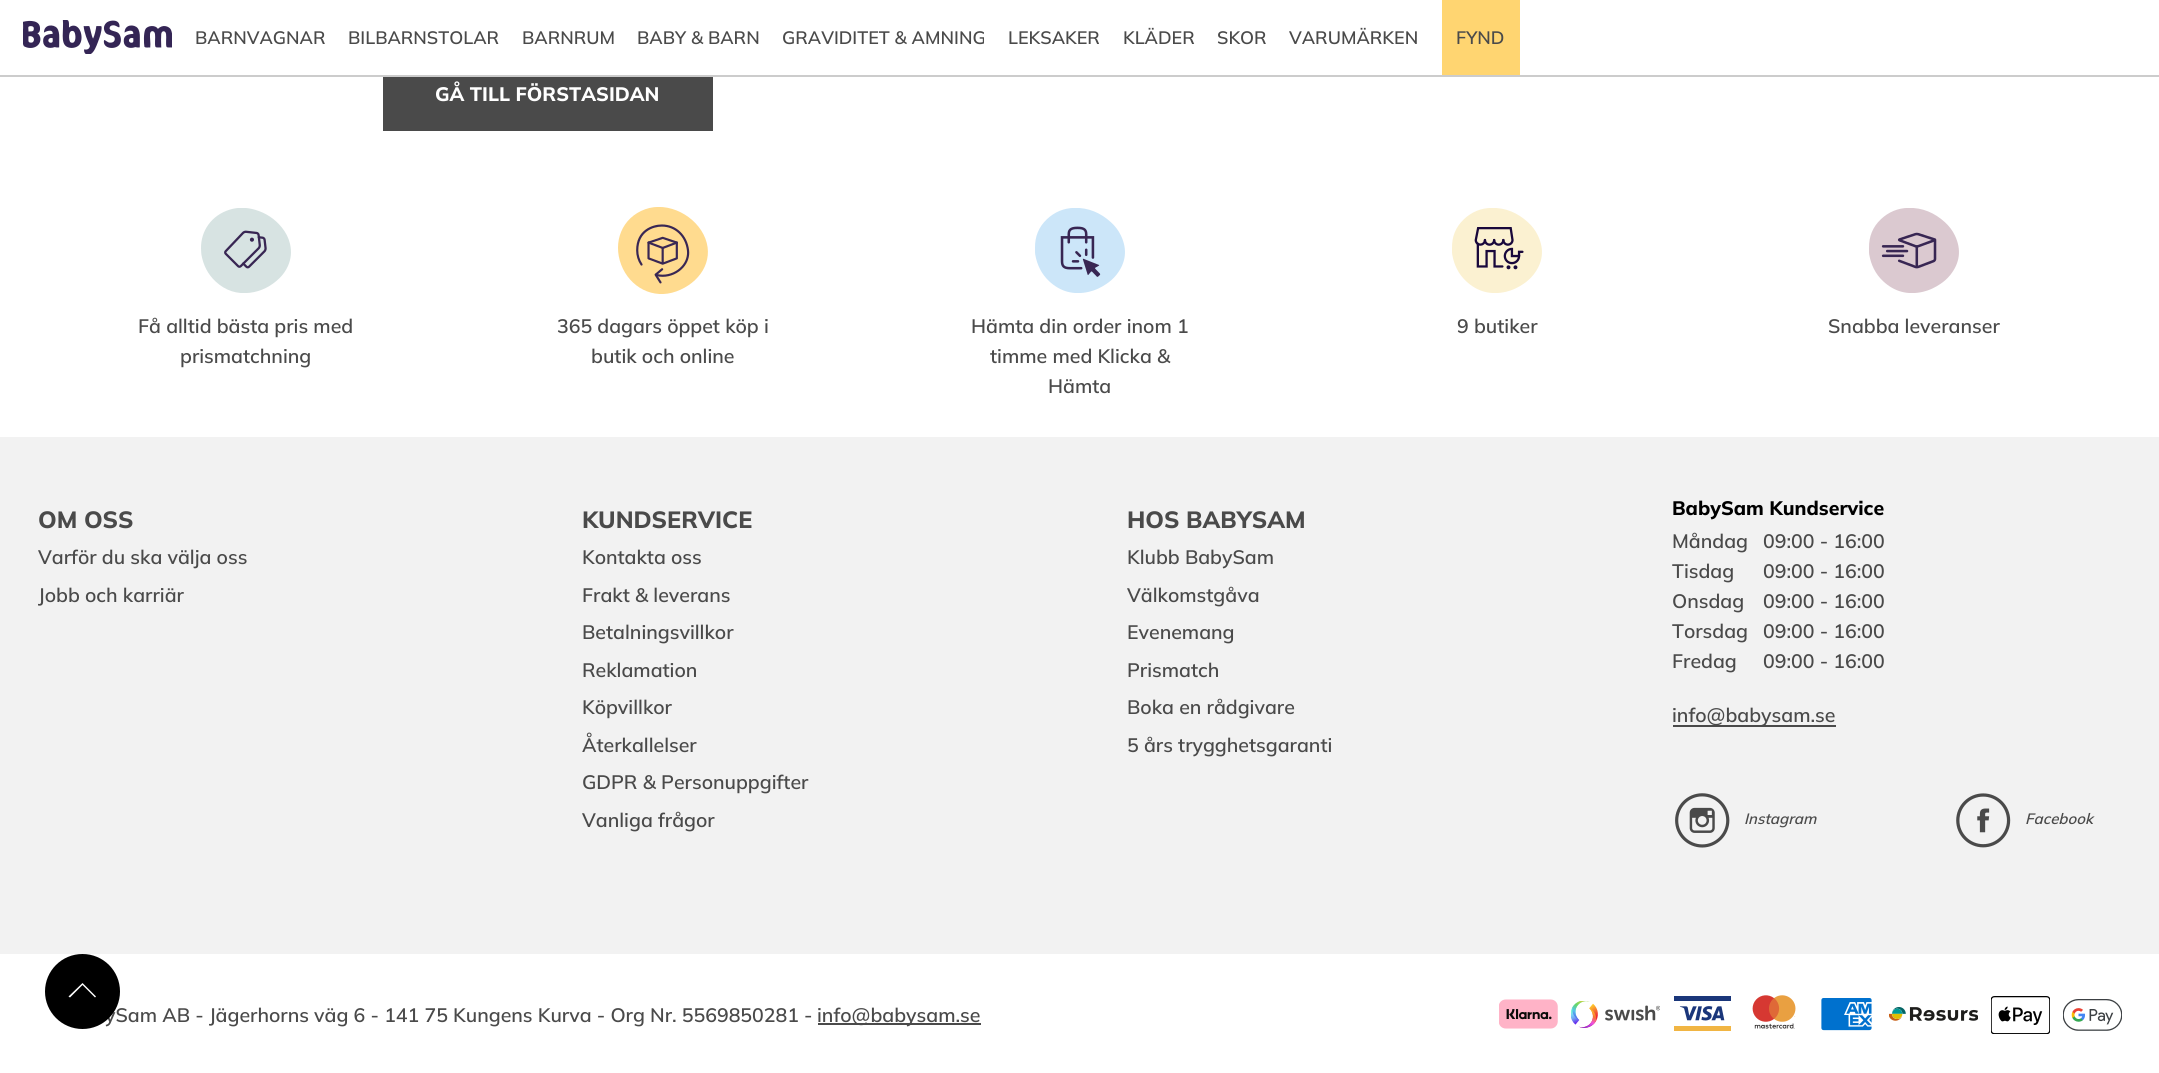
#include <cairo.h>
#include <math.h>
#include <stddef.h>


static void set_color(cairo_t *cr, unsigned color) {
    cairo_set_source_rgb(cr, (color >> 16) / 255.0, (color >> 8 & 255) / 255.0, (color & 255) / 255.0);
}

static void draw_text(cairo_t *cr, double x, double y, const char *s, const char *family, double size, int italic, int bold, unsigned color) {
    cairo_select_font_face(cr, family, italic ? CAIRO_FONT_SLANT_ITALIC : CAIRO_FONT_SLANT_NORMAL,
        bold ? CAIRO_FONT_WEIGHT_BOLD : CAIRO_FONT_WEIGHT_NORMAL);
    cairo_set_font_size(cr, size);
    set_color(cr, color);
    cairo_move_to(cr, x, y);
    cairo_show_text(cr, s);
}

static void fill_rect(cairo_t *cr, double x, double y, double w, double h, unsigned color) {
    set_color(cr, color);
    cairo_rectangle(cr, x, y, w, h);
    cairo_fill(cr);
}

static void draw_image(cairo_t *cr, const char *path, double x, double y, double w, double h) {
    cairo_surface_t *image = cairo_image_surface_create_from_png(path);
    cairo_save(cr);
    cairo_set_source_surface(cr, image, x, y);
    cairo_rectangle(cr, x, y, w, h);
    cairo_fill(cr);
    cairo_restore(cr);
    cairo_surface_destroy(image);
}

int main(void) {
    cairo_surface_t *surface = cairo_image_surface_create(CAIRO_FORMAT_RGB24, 2159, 1073);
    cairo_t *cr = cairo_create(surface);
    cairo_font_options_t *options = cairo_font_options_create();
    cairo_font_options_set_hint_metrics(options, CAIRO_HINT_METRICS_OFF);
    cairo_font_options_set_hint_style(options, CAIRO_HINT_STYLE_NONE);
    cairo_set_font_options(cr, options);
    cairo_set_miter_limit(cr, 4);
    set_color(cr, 0xFFFFFF);
    cairo_paint(cr);
    fill_rect(cr, 0, 75, 2159, 2, 0xCCCCCC);
    draw_image(cr, "assets/img1.png", 23, 20, 149, 34);
    draw_text(cr, 195, 44, "BARNVAGNAR", "Mulish SemiBold", 18, 0, 0, 0x4A4A4A);
    draw_text(cr, 348, 44, "BILBARNSTOLAR", "Mulish SemiBold", 18, 0, 0, 0x4A4A4A);
    draw_text(cr, 522, 44, "BARNRUM", "Mulish SemiBold", 18, 0, 0, 0x4A4A4A);
    draw_text(cr, 637, 44, "BABY & BARN", "Mulish SemiBold", 18, 0, 0, 0x4A4A4A);
    draw_text(cr, 782, 44, "GRAVIDITET & AMNING", "Mulish SemiBold", 18, 0, 0, 0x4A4A4A);
    draw_text(cr, 1008, 44, "LEKSAKER", "Mulish SemiBold", 18, 0, 0, 0x4A4A4A);
    draw_text(cr, 1123, 44, "KLÄDER", "Mulish SemiBold", 18, 0, 0, 0x4A4A4A);
    draw_text(cr, 1217, 44, "SKOR", "Mulish SemiBold", 18, 0, 0, 0x4A4A4A);
    draw_text(cr, 1289, 44, "VARUMÄRKEN", "Mulish SemiBold", 18, 0, 0, 0x4A4A4A);
    fill_rect(cr, 1442, 0, 78, 75, 0xFFD571);
    draw_text(cr, 1456, 44, "FYND", "Mulish SemiBold", 18, 0, 0, 0x4A4A4A);
    fill_rect(cr, 383, 77, 330, 54, 0x4A4A4A);
    draw_text(cr, 435, 101, "GÅ TILL FÖRSTASIDAN", "Mulish ExtraBold", 19.5, 0, 0, 0xFFFFFF);
    draw_image(cr, "assets/img2.png", 201, 208, 90, 85);
    draw_text(cr, 138, 333, "Få alltid bästa pris med", "Mulish SemiBold", 19.5, 0, 0, 0x4A4A4A);
    draw_text(cr, 180, 363, "prismatchning", "Mulish SemiBold", 19.5, 0, 0, 0x4A4A4A);
    draw_image(cr, "assets/img3.png", 618, 207, 90, 87);
    draw_text(cr, 557, 333, "365 dagars öppet köp i", "Mulish SemiBold", 19.5, 0, 0, 0x4A4A4A);
    draw_text(cr, 591, 363, "butik och online", "Mulish SemiBold", 19.5, 0, 0, 0x4A4A4A);
    draw_image(cr, "assets/img4.png", 1035, 208, 90, 85);
    draw_text(cr, 971, 333, "Hämta din order inom 1", "Mulish SemiBold", 19.5, 0, 0, 0x4A4A4A);
    draw_text(cr, 990, 363, "timme med Klicka &", "Mulish SemiBold", 19.5, 0, 0, 0x4A4A4A);
    draw_text(cr, 1048, 393, "Hämta", "Mulish SemiBold", 19.5, 0, 0, 0x4A4A4A);
    draw_image(cr, "assets/img5.png", 1452, 208, 90, 85);
    draw_text(cr, 1457, 333, "9 butiker", "Mulish SemiBold", 19.5, 0, 0, 0x4A4A4A);
    draw_image(cr, "assets/img6.png", 1869, 208, 90, 85);
    draw_text(cr, 1828, 333, "Snabba leveranser", "Mulish SemiBold", 19.5, 0, 0, 0x4A4A4A);
    fill_rect(cr, 0, 437, 2159, 517, 0xF2F2F2);
    draw_text(cr, 38, 528, "OM OSS", "Mulish ExtraBold", 23.5, 0, 0, 0x4A4A4A);
    draw_text(cr, 38, 564, "Varför du ska välja oss", "Mulish SemiBold", 19.5, 0, 0, 0x4A4A4A);
    draw_text(cr, 38, 602, "Jobb och karriär", "Mulish SemiBold", 19.5, 0, 0, 0x4A4A4A);
    draw_text(cr, 582, 528, "KUNDSERVICE", "Mulish ExtraBold", 23.5, 0, 0, 0x4A4A4A);
    draw_text(cr, 582, 564, "Kontakta oss", "Mulish SemiBold", 19.5, 0, 0, 0x4A4A4A);
    draw_text(cr, 582, 602, "Frakt & leverans", "Mulish SemiBold", 19.5, 0, 0, 0x4A4A4A);
    draw_text(cr, 582, 639, "Betalningsvillkor", "Mulish SemiBold", 19.5, 0, 0, 0x4A4A4A);
    draw_text(cr, 582, 677, "Reklamation", "Mulish SemiBold", 19.5, 0, 0, 0x4A4A4A);
    draw_text(cr, 582, 714, "Köpvillkor", "Mulish SemiBold", 19.5, 0, 0, 0x4A4A4A);
    draw_text(cr, 582, 752, "Återkallelser", "Mulish SemiBold", 19.5, 0, 0, 0x4A4A4A);
    draw_text(cr, 582, 789, "GDPR & Personuppgifter", "Mulish SemiBold", 19.5, 0, 0, 0x4A4A4A);
    draw_text(cr, 582, 827, "Vanliga frågor", "Mulish SemiBold", 19.5, 0, 0, 0x4A4A4A);
    draw_text(cr, 1127, 528, "HOS BABYSAM", "Mulish ExtraBold", 23.5, 0, 0, 0x4A4A4A);
    draw_text(cr, 1127, 564, "Klubb BabySam", "Mulish SemiBold", 19.5, 0, 0, 0x4A4A4A);
    draw_text(cr, 1127, 602, "Välkomstgåva", "Mulish SemiBold", 19.5, 0, 0, 0x4A4A4A);
    draw_text(cr, 1127, 639, "Evenemang", "Mulish SemiBold", 19.5, 0, 0, 0x4A4A4A);
    draw_text(cr, 1127, 677, "Prismatch", "Mulish SemiBold", 19.5, 0, 0, 0x4A4A4A);
    draw_text(cr, 1127, 714, "Boka en rådgivare", "Mulish SemiBold", 19.5, 0, 0, 0x4A4A4A);
    draw_text(cr, 1127, 752, "5 års trygghetsgaranti", "Mulish SemiBold", 19.5, 0, 0, 0x4A4A4A);
    draw_text(cr, 1672, 515, "BabySam Kundservice", "Mulish ExtraBold", 19.5, 0, 0, 0x000000);
    draw_text(cr, 1672, 548, "Måndag", "Mulish SemiBold", 19.5, 0, 0, 0x4A4A4A);
    draw_text(cr, 1763, 548, "09:00 - 16:00", "Mulish SemiBold", 19.5, 0, 0, 0x4A4A4A);
    draw_text(cr, 1672, 578, "Tisdag", "Mulish SemiBold", 19.5, 0, 0, 0x4A4A4A);
    draw_text(cr, 1763, 578, "09:00 - 16:00", "Mulish SemiBold", 19.5, 0, 0, 0x4A4A4A);
    draw_text(cr, 1672, 608, "Onsdag", "Mulish SemiBold", 19.5, 0, 0, 0x4A4A4A);
    draw_text(cr, 1763, 608, "09:00 - 16:00", "Mulish SemiBold", 19.5, 0, 0, 0x4A4A4A);
    draw_text(cr, 1672, 638, "Torsdag", "Mulish SemiBold", 19.5, 0, 0, 0x4A4A4A);
    draw_text(cr, 1763, 638, "09:00 - 16:00", "Mulish SemiBold", 19.5, 0, 0, 0x4A4A4A);
    draw_text(cr, 1672, 668, "Fredag", "Mulish SemiBold", 19.5, 0, 0, 0x4A4A4A);
    draw_text(cr, 1763, 668, "09:00 - 16:00", "Mulish SemiBold", 19.5, 0, 0, 0x4A4A4A);
    fill_rect(cr, 1673, 725, 163, 2, 0x4A4A4A);
    draw_text(cr, 1672, 722, "info@babysam.se", "Mulish SemiBold", 19.5, 0, 0, 0x4A4A4A);
    draw_image(cr, "assets/img7.png", 1675, 793, 55, 55);
    draw_text(cr, 1744, 824, "Instagram", "Mulish SemiBold", 15, 1, 0, 0x4A4A4A);
    draw_image(cr, "assets/img8.png", 1956, 793, 55, 55);
    draw_text(cr, 2025, 824, "Facebook", "Mulish SemiBold", 15, 1, 0, 0x4A4A4A);
    draw_text(cr, 105, 1022, "ySam AB - Jägerhorns väg 6 - 141 75 Kungens Kurva - Org Nr. 5569850281 -", "Mulish SemiBold", 19.5, 0, 0, 0x4A4A4A);
    fill_rect(cr, 818, 1023, 163, 2, 0x4A4A4A);
    draw_text(cr, 817, 1022, "info@babysam.se", "Mulish SemiBold", 19.5, 0, 0, 0x4A4A4A);
    draw_image(cr, "assets/img9.png", 1499, 999, 59, 30);
    draw_image(cr, "assets/img10.png", 1571, 1001, 89, 27);
    draw_image(cr, "assets/img11.png", 1674, 996, 57, 35);
    draw_image(cr, "assets/img12.png", 1752, 995, 44, 34);
    draw_image(cr, "assets/img13.png", 1821, 998, 51, 33);
    draw_image(cr, "assets/img14.png", 1889, 1007, 89, 14);
    draw_image(cr, "assets/img15.png", 1991, 996, 59, 38);
    draw_image(cr, "assets/img16.png", 2063, 999, 59, 32);
    set_color(cr, 0x000000);
    cairo_arc(cr, 82.5, 991.5, 37.5, 0, 2 * M_PI);
    cairo_fill(cr);
    set_color(cr, 0xFFFFFF);
    cairo_new_path(cr);
    cairo_move_to(cr, 95, 997.5);
    cairo_line_to(cr, 82.5, 985);
    cairo_line_to(cr, 70, 997.5);
    cairo_line_to(cr, 68.5, 996.5);
    cairo_line_to(cr, 82.5, 983);
    cairo_line_to(cr, 96, 996.5);
    cairo_fill(cr);
    cairo_surface_write_to_png(surface, "output.png");
    cairo_font_options_destroy(options);
    cairo_destroy(cr);
    cairo_surface_destroy(surface);
    return 0;
}
